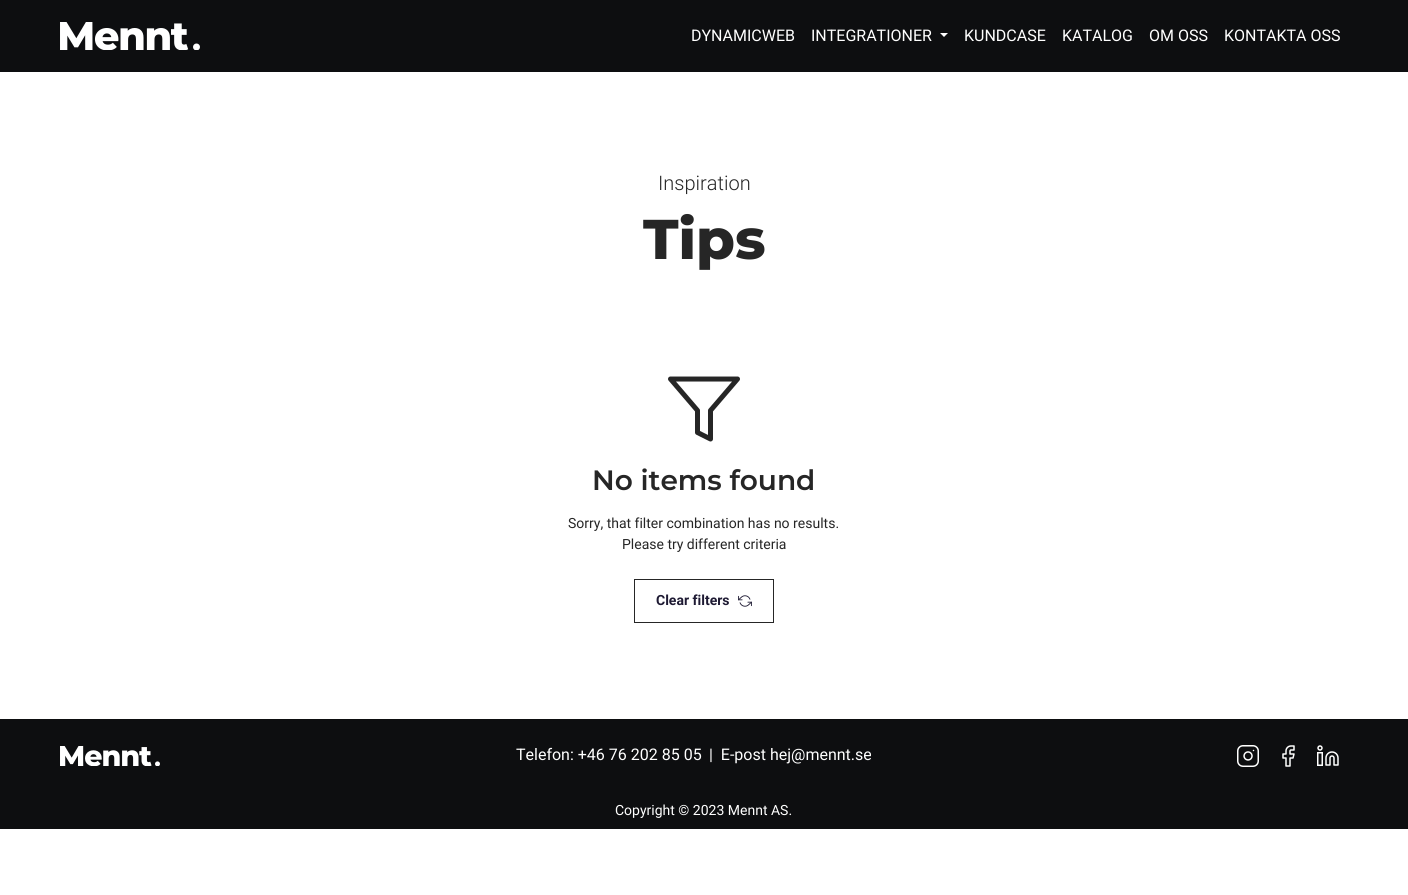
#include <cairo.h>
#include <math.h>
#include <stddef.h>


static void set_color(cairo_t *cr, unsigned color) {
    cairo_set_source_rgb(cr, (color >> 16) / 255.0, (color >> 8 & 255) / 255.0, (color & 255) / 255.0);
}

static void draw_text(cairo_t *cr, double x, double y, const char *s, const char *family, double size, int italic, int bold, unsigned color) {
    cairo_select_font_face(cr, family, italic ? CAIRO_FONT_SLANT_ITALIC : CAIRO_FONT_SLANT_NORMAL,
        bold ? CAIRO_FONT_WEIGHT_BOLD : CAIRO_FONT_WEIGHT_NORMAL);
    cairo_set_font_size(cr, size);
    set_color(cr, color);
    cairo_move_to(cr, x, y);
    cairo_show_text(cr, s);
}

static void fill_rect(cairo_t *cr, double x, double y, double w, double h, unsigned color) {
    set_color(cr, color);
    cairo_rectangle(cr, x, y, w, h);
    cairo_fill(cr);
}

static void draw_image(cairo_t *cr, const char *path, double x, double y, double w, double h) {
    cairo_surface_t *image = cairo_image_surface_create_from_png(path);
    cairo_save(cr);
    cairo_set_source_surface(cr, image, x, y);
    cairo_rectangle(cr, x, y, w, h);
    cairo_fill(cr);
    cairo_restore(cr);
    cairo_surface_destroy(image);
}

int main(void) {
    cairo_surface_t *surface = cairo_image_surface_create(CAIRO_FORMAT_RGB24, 1408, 895);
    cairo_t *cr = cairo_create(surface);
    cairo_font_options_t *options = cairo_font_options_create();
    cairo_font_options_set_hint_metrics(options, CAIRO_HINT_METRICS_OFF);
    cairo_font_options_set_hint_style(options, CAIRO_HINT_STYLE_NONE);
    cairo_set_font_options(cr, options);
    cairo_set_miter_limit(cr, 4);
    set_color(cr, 0xFFFFFF);
    cairo_paint(cr);
    fill_rect(cr, 0, 0, 1408, 72, 0x0D0E10);
    draw_image(cr, "assets/img1.png", 60, 22, 140, 28);
    draw_text(cr, 691, 41, "DYNAMICWEB", "Roboto", 16, 0, 0, 0xFFFFFF);
    draw_text(cr, 811, 41, "INTEGRATIONER", "Roboto", 16, 0, 0, 0xFFFFFF);
    cairo_new_path(cr);
    cairo_move_to(cr, 940, 33);
    cairo_line_to(cr, 948, 33);
    cairo_line_to(cr, 944, 37);
    cairo_close_path(cr);
    cairo_fill(cr);
    draw_text(cr, 964, 41, "KUNDCASE", "Roboto", 16, 0, 0, 0xFFFFFF);
    draw_text(cr, 1062, 41, "KATALOG", "Roboto", 16, 0, 0, 0xFFFFFF);
    draw_text(cr, 1149, 41, "OM OSS", "Roboto", 16, 0, 0, 0xFFFFFF);
    draw_text(cr, 1224, 41, "KONTAKTA OSS", "Roboto", 16, 0, 0, 0xFFFFFF);
    draw_text(cr, 658, 190, "Inspiration", "Roboto Light", 20, 0, 0, 0x262626);
    draw_text(cr, 643, 259, "Tips", "Montserrat ExtraBold", 56, 0, 0, 0x262626);
    cairo_new_path(cr);
    cairo_move_to(cr, 737.5, 379);
    cairo_line_to(cr, 670.5, 379);
    cairo_line_to(cr, 697.5, 410.5);
    cairo_line_to(cr, 697.5, 432.5);
    cairo_line_to(cr, 710.5, 439);
    cairo_line_to(cr, 710.5, 410.5);
    cairo_close_path(cr);
    cairo_set_line_width(cr, 5);
    cairo_set_line_cap(cr, CAIRO_LINE_CAP_ROUND);
    cairo_set_line_join(cr, CAIRO_LINE_JOIN_ROUND);
    cairo_stroke(cr);
    draw_text(cr, 592, 490, "No items found", "Montserrat SemiBold", 28, 0, 0, 0x262626);
    draw_text(cr, 568, 528, "Sorry, that filter combination has no results.", "Roboto", 14, 0, 0, 0x262626);
    draw_text(cr, 622, 549, "Please try different criteria", "Roboto", 14, 0, 0, 0x262626);
    cairo_rectangle(cr, 634.5, 579.5, 139, 43);
    cairo_set_line_width(cr, 1);
    cairo_set_line_cap(cr, CAIRO_LINE_CAP_BUTT);
    cairo_set_line_join(cr, CAIRO_LINE_JOIN_MITER);
    cairo_stroke(cr);
    draw_text(cr, 656, 605, "Clear filters", "Roboto", 14, 0, 1, 0x1E1A33);
    draw_image(cr, "assets/img2.png", 738, 595, 14, 12);
    fill_rect(cr, 0, 719, 1408, 110, 0x0D0E10);
    draw_image(cr, "assets/img3.png", 60, 746, 100, 20);
    draw_text(cr, 516, 760, "Telefon: +46 76 202 85 05", "Roboto", 16, 0, 0, 0xFFFFFF);
    draw_text(cr, 709, 760, "|  E-post hej@mennt.se", "Roboto", 16, 0, 0, 0xFFFFFF);
    draw_image(cr, "assets/img4.png", 1237, 745, 22, 22);
    draw_image(cr, "assets/img5.png", 1282, 745, 13, 22);
    draw_image(cr, "assets/img6.png", 1317, 745, 22, 21);
    draw_text(cr, 615, 815, "Copyright © 2023 Mennt AS.", "Roboto", 14, 0, 0, 0xFFFFFF);
    cairo_surface_write_to_png(surface, "output.png");
    cairo_font_options_destroy(options);
    cairo_destroy(cr);
    cairo_surface_destroy(surface);
    return 0;
}
